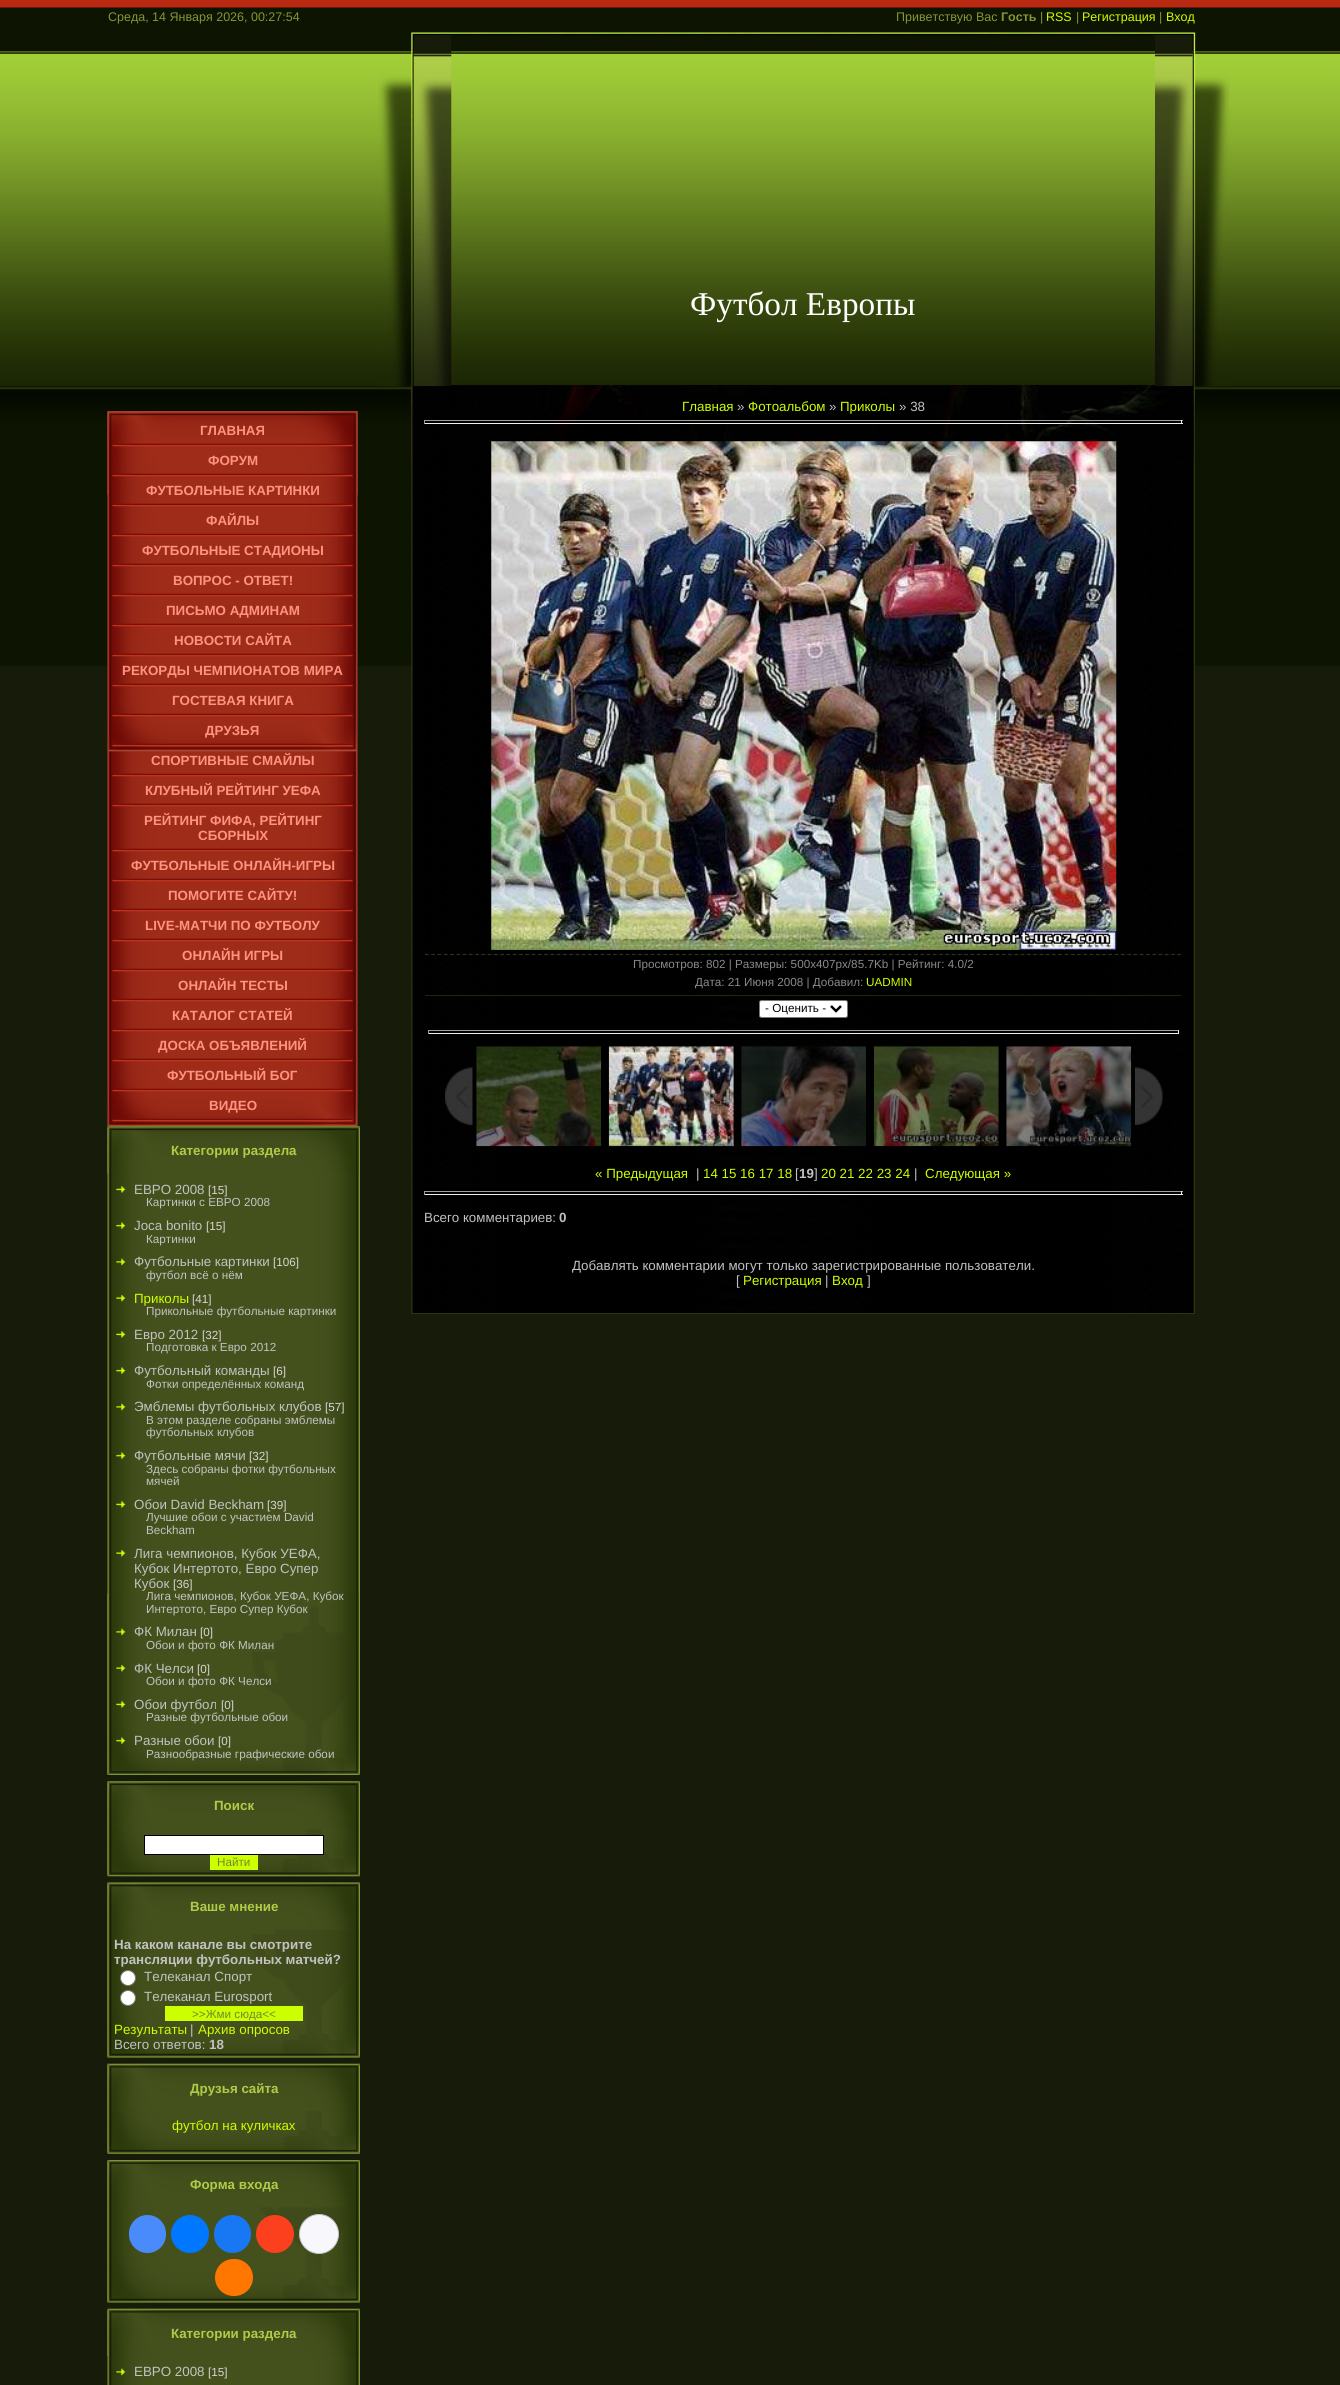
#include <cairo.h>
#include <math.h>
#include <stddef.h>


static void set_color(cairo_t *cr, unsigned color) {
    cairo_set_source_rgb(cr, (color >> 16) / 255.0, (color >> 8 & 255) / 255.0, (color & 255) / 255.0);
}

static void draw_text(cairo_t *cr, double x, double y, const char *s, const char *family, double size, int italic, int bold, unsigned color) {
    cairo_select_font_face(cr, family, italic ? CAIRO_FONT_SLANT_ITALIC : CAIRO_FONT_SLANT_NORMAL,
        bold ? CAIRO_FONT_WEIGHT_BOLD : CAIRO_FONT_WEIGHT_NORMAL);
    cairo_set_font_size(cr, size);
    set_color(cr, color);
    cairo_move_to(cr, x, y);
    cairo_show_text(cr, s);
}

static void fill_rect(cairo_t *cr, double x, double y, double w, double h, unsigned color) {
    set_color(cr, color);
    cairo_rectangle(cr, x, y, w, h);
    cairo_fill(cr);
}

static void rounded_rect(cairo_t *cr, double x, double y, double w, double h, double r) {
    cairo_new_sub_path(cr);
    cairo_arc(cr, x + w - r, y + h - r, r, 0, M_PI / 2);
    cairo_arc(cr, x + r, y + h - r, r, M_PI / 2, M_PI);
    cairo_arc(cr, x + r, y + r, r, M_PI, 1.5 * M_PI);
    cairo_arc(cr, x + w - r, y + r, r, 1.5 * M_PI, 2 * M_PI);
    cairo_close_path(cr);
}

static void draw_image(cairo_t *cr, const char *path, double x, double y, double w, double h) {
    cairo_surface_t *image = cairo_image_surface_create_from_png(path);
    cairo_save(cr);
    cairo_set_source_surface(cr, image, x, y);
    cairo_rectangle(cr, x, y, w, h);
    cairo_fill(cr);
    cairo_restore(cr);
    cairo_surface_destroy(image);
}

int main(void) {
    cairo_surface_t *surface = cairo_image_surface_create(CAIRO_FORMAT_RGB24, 1340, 2385);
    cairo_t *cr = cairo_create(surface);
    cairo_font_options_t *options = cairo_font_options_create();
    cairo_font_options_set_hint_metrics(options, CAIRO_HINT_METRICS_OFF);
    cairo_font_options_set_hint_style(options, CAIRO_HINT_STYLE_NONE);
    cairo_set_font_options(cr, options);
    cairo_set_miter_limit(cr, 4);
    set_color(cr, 0x171B0A);
    cairo_paint(cr);
    draw_image(cr, "assets/img1.png", 0, 0, 1340, 666);
    draw_text(cr, 108, 21, "Среда, 14 Января 2026, 00:27:54", "Liberation Sans", 12.5, 0, 0, 0x819835);
    draw_text(cr, 896, 21, "Приветствую Вас", "Liberation Sans", 12.5, 0, 0, 0x819835);
    draw_text(cr, 1001, 21, "Гость", "Liberation Sans", 12.5, 0, 1, 0x819835);
    draw_text(cr, 1040, 21, "|", "Liberation Sans", 12.5, 0, 0, 0x819835);
    draw_text(cr, 1046, 21, "RSS", "Liberation Sans", 12.5, 0, 0, 0xCCFF00);
    draw_text(cr, 1076, 21, "|", "Liberation Sans", 12.5, 0, 0, 0x819835);
    draw_text(cr, 1082, 21, "Регистрация", "Liberation Sans", 12.5, 0, 0, 0xCCFF00);
    draw_text(cr, 1159, 21, "|", "Liberation Sans", 12.5, 0, 0, 0x819835);
    draw_text(cr, 1166, 21, "Вход", "Liberation Sans", 12.5, 0, 0, 0xCCFF00);
    draw_image(cr, "assets/img2.png", 378, 32, 852, 355);
    draw_image(cr, "assets/img3.png", 413, 35, 39, 352);
    draw_text(cr, 690, 315, "Футбол Европы", "Liberation Serif", 33.25, 0, 0, 0xFFFFFF);
    draw_image(cr, "assets/img4.png", 1155, 35, 38, 352);
    draw_image(cr, "assets/img5.png", 107, 411, 251, 716);
    draw_image(cr, "assets/img6.png", 107, 411, 251, 84);
    draw_image(cr, "assets/img7.png", 112, 443, 241, 4);
    draw_text(cr, 200, 435, "ГЛАВНАЯ", "Liberation Sans", 13.35, 0, 1, 0xFF9280);
    draw_image(cr, "assets/img8.png", 112, 473, 241, 4);
    draw_text(cr, 208, 465, "ФОРУМ", "Liberation Sans", 13.35, 0, 1, 0xFF9280);
    draw_image(cr, "assets/img9.png", 112, 503, 241, 4);
    draw_text(cr, 146, 495, "ФУТБОЛЬНЫЕ КАРТИНКИ", "Liberation Sans", 13.35, 0, 1, 0xFF9280);
    draw_image(cr, "assets/img9.png", 112, 533, 241, 4);
    draw_text(cr, 206, 525, "ФАЙЛЫ", "Liberation Sans", 13.35, 0, 1, 0xFF9280);
    draw_image(cr, "assets/img10.png", 112, 563, 241, 4);
    draw_text(cr, 142, 555, "ФУТБОЛЬНЫЕ СТАДИОНЫ", "Liberation Sans", 13.35, 0, 1, 0xFF9280);
    draw_image(cr, "assets/img11.png", 112, 593, 241, 4);
    draw_text(cr, 173, 585, "ВОПРОС - ОТВЕТ!", "Liberation Sans", 13.35, 0, 1, 0xFF9280);
    draw_image(cr, "assets/img11.png", 112, 623, 241, 4);
    draw_text(cr, 166, 615, "ПИСЬМО АДМИНАМ", "Liberation Sans", 13.35, 0, 1, 0xFF9280);
    draw_image(cr, "assets/img11.png", 112, 653, 241, 4);
    draw_text(cr, 174, 645, "НОВОСТИ САЙТА", "Liberation Sans", 13.35, 0, 1, 0xFF9280);
    draw_image(cr, "assets/img10.png", 112, 683, 241, 4);
    draw_text(cr, 122, 675, "РЕКОРДЫ ЧЕМПИОНАТОВ МИРА", "Liberation Sans", 13.35, 0, 1, 0xFF9280);
    draw_image(cr, "assets/img12.png", 112, 713, 241, 4);
    draw_text(cr, 172, 705, "ГОСТЕВАЯ КНИГА", "Liberation Sans", 13.35, 0, 1, 0xFF9280);
    draw_image(cr, "assets/img13.png", 112, 743, 241, 4);
    draw_text(cr, 205, 735, "ДРУЗЬЯ", "Liberation Sans", 13.35, 0, 1, 0xFF9280);
    draw_image(cr, "assets/img14.png", 112, 773, 241, 4);
    draw_text(cr, 151, 765, "СПОРТИВНЫЕ СМАЙЛЫ", "Liberation Sans", 13.35, 0, 1, 0xFF9280);
    draw_image(cr, "assets/img14.png", 112, 803, 241, 4);
    draw_text(cr, 145, 795, "КЛУБНЫЙ РЕЙТИНГ УЕФА", "Liberation Sans", 13.35, 0, 1, 0xFF9280);
    draw_image(cr, "assets/img14.png", 112, 848, 241, 4);
    draw_text(cr, 144, 825, "РЕЙТИНГ ФИФА, РЕЙТИНГ", "Liberation Sans", 13.35, 0, 1, 0xFF9280);
    draw_text(cr, 198, 840, "СБОРНЫХ", "Liberation Sans", 13.35, 0, 1, 0xFF9280);
    draw_image(cr, "assets/img14.png", 112, 878, 241, 4);
    draw_text(cr, 131, 870, "ФУТБОЛЬНЫЕ ОНЛАЙН-ИГРЫ", "Liberation Sans", 13.35, 0, 1, 0xFF9280);
    draw_image(cr, "assets/img15.png", 112, 908, 241, 4);
    draw_text(cr, 168, 900, "ПОМОГИТЕ САЙТУ!", "Liberation Sans", 13.35, 0, 1, 0xFF9280);
    draw_image(cr, "assets/img14.png", 112, 938, 241, 4);
    draw_text(cr, 145, 930, "LIVE-МАТЧИ ПО ФУТБОЛУ", "Liberation Sans", 13.35, 0, 1, 0xFF9280);
    draw_image(cr, "assets/img14.png", 112, 968, 241, 4);
    draw_text(cr, 182, 960, "ОНЛАЙН ИГРЫ", "Liberation Sans", 13.35, 0, 1, 0xFF9280);
    draw_image(cr, "assets/img14.png", 112, 998, 241, 4);
    draw_text(cr, 178, 990, "ОНЛАЙН ТЕСТЫ", "Liberation Sans", 13.35, 0, 1, 0xFF9280);
    draw_image(cr, "assets/img16.png", 112, 1028, 241, 4);
    draw_text(cr, 172, 1020, "КАТАЛОГ СТАТЕЙ", "Liberation Sans", 13.35, 0, 1, 0xFF9280);
    draw_image(cr, "assets/img17.png", 112, 1058, 241, 4);
    draw_text(cr, 158, 1050, "ДОСКА ОБЪЯВЛЕНИЙ", "Liberation Sans", 13.35, 0, 1, 0xFF9280);
    draw_image(cr, "assets/img18.png", 112, 1088, 241, 4);
    draw_text(cr, 167, 1080, "ФУТБОЛЬНЫЙ БОГ", "Liberation Sans", 13.35, 0, 1, 0xFF9280);
    draw_image(cr, "assets/img13.png", 112, 1118, 241, 4);
    draw_text(cr, 209, 1110, "ВИДЕО", "Liberation Sans", 13.35, 0, 1, 0xFF9280);
    draw_image(cr, "assets/img19.png", 107, 1126, 253, 649);
    draw_image(cr, "assets/img20.png", 107, 1126, 253, 48);
    draw_text(cr, 171, 1155, "Категории раздела", "Liberation Sans", 13.35, 0, 1, 0xAECC48);
    draw_image(cr, "assets/img21.png", 107, 1593, 253, 182);
    draw_image(cr, "assets/img22.png", 116, 1186, 10, 7);
    draw_text(cr, 134, 1194, "ЕВРО 2008", "Liberation Sans", 13.35, 0, 0, 0xC2C2C2);
    draw_text(cr, 208, 1194, "[15]", "Liberation Sans", 11.7, 0, 0, 0xD8D5D5);
    draw_text(cr, 146, 1206, "Картинки с ЕВРО 2008", "Liberation Sans", 11.7, 0, 0, 0xC2C2C2);
    draw_image(cr, "assets/img23.png", 116, 1222, 10, 7);
    draw_text(cr, 134, 1230, "Joca bonito", "Liberation Sans", 13.35, 0, 0, 0xC2C2C2);
    draw_text(cr, 206, 1230, "[15]", "Liberation Sans", 11.7, 0, 0, 0xD8D5D5);
    draw_text(cr, 146, 1243, "Картинки", "Liberation Sans", 11.7, 0, 0, 0xC2C2C2);
    draw_image(cr, "assets/img24.png", 116, 1258, 10, 8);
    draw_text(cr, 134, 1266, "Футбольные картинки", "Liberation Sans", 13.35, 0, 0, 0xC2C2C2);
    draw_text(cr, 273, 1266, "[106]", "Liberation Sans", 11.7, 0, 0, 0xD8D5D5);
    draw_text(cr, 146, 1279, "футбол всё о нём", "Liberation Sans", 11.7, 0, 0, 0xC2C2C2);
    draw_image(cr, "assets/img25.png", 116, 1294, 10, 8);
    draw_text(cr, 134, 1303, "Приколы", "Liberation Sans", 13.35, 0, 0, 0xCCFF00);
    draw_text(cr, 192, 1303, "[41]", "Liberation Sans", 11.7, 0, 0, 0xD8D5D5);
    draw_text(cr, 146, 1315, "Прикольные футбольные картинки", "Liberation Sans", 11.7, 0, 0, 0xC2C2C2);
    draw_image(cr, "assets/img22.png", 116, 1331, 10, 7);
    draw_text(cr, 134, 1339, "Евро 2012", "Liberation Sans", 13.35, 0, 0, 0xC2C2C2);
    draw_text(cr, 202, 1339, "[32]", "Liberation Sans", 11.7, 0, 0, 0xD8D5D5);
    draw_text(cr, 146, 1351, "Подготовка к Евро 2012", "Liberation Sans", 11.7, 0, 0, 0xC2C2C2);
    draw_image(cr, "assets/img23.png", 116, 1367, 10, 7);
    draw_text(cr, 134, 1375, "Футбольный команды", "Liberation Sans", 13.35, 0, 0, 0xC2C2C2);
    draw_text(cr, 273, 1375, "[6]", "Liberation Sans", 11.7, 0, 0, 0xD8D5D5);
    draw_text(cr, 146, 1388, "Фотки определённых команд", "Liberation Sans", 11.7, 0, 0, 0xC2C2C2);
    draw_image(cr, "assets/img24.png", 116, 1403, 10, 8);
    draw_text(cr, 134, 1411, "Эмблемы футбольных клубов", "Liberation Sans", 13.35, 0, 0, 0xC2C2C2);
    draw_text(cr, 325, 1411, "[57]", "Liberation Sans", 11.7, 0, 0, 0xD8D5D5);
    draw_text(cr, 146, 1424, "В этом разделе собраны эмблемы", "Liberation Sans", 11.7, 0, 0, 0xC2C2C2);
    draw_text(cr, 146, 1436, "футбольных клубов", "Liberation Sans", 11.7, 0, 0, 0xC2C2C2);
    draw_image(cr, "assets/img23.png", 116, 1452, 10, 7);
    draw_text(cr, 134, 1460, "Футбольные мячи", "Liberation Sans", 13.35, 0, 0, 0xC2C2C2);
    draw_text(cr, 249, 1460, "[32]", "Liberation Sans", 11.7, 0, 0, 0xD8D5D5);
    draw_text(cr, 146, 1473, "Здесь собраны фотки футбольных", "Liberation Sans", 11.7, 0, 0, 0xC2C2C2);
    draw_text(cr, 146, 1485, "мячей", "Liberation Sans", 11.7, 0, 0, 0xC2C2C2);
    draw_image(cr, "assets/img22.png", 116, 1501, 10, 7);
    draw_text(cr, 134, 1509, "Обои David Beckham", "Liberation Sans", 13.35, 0, 0, 0xC2C2C2);
    draw_text(cr, 267, 1509, "[39]", "Liberation Sans", 11.7, 0, 0, 0xD8D5D5);
    draw_text(cr, 146, 1521, "Лучшие обои с участием David", "Liberation Sans", 11.7, 0, 0, 0xC2C2C2);
    draw_text(cr, 146, 1534, "Beckham", "Liberation Sans", 11.7, 0, 0, 0xC2C2C2);
    draw_image(cr, "assets/img25.png", 116, 1549, 10, 8);
    draw_text(cr, 134, 1558, "Лига чемпионов, Кубок УЕФА,", "Liberation Sans", 13.35, 0, 0, 0xC2C2C2);
    draw_text(cr, 134, 1573, "Кубок Интертото, Евро Супер", "Liberation Sans", 13.35, 0, 0, 0xC2C2C2);
    draw_text(cr, 134, 1588, "Кубок", "Liberation Sans", 13.35, 0, 0, 0xC2C2C2);
    draw_text(cr, 173, 1588, "[36]", "Liberation Sans", 11.7, 0, 0, 0xD8D5D5);
    draw_text(cr, 146, 1600, "Лига чемпионов, Кубок УЕФА, Кубок", "Liberation Sans", 11.7, 0, 0, 0xC2C2C2);
    draw_text(cr, 146, 1613, "Интертото, Евро Супер Кубок", "Liberation Sans", 11.7, 0, 0, 0xC2C2C2);
    draw_image(cr, "assets/img26.png", 116, 1628, 10, 8);
    draw_text(cr, 134, 1636, "ФК Милан", "Liberation Sans", 13.35, 0, 0, 0xC2C2C2);
    draw_text(cr, 200, 1636, "[0]", "Liberation Sans", 11.7, 0, 0, 0xD8D5D5);
    draw_text(cr, 146, 1649, "Обои и фото ФК Милан", "Liberation Sans", 11.7, 0, 0, 0xC2C2C2);
    draw_image(cr, "assets/img27.png", 116, 1664, 10, 8);
    draw_text(cr, 134, 1673, "ФК Челси", "Liberation Sans", 13.35, 0, 0, 0xC2C2C2);
    draw_text(cr, 197, 1673, "[0]", "Liberation Sans", 11.7, 0, 0, 0xD8D5D5);
    draw_text(cr, 146, 1685, "Обои и фото ФК Челси", "Liberation Sans", 11.7, 0, 0, 0xC2C2C2);
    draw_image(cr, "assets/img28.png", 116, 1701, 10, 7);
    draw_text(cr, 134, 1709, "Обои футбол", "Liberation Sans", 13.35, 0, 0, 0xC2C2C2);
    draw_text(cr, 221, 1709, "[0]", "Liberation Sans", 11.7, 0, 0, 0xD8D5D5);
    draw_text(cr, 146, 1721, "Разные футбольные обои", "Liberation Sans", 11.7, 0, 0, 0xC2C2C2);
    draw_image(cr, "assets/img29.png", 116, 1737, 10, 7);
    draw_text(cr, 134, 1745, "Разные обои", "Liberation Sans", 13.35, 0, 0, 0xC2C2C2);
    draw_text(cr, 218, 1745, "[0]", "Liberation Sans", 11.7, 0, 0, 0xD8D5D5);
    draw_text(cr, 146, 1758, "Разнообразные графические обои", "Liberation Sans", 11.7, 0, 0, 0xC2C2C2);
    draw_image(cr, "assets/img30.png", 107, 1781, 253, 96);
    draw_image(cr, "assets/img31.png", 107, 1781, 253, 48);
    draw_text(cr, 214, 1810, "Поиск", "Liberation Sans", 13.35, 0, 1, 0xAECC48);
    draw_image(cr, "assets/img32.png", 107, 1828, 253, 49);
    set_color(cr, 0xFFFFFF);
    cairo_rectangle(cr, 144.5, 1835.5, 179, 19);
    cairo_fill_preserve(cr);
    set_color(cr, 0x000000);
    cairo_set_line_width(cr, 1);
    cairo_stroke(cr);
    fill_rect(cr, 210, 1855, 48, 15, 0xCCFF00);
    draw_text(cr, 217, 1866, "Найти", "Liberation Sans", 11.7, 0, 0, 0x738830);
    draw_image(cr, "assets/img33.png", 107, 1882, 253, 176);
    draw_image(cr, "assets/img34.png", 107, 1882, 253, 48);
    draw_text(cr, 190, 1911, "Ваше мнение", "Liberation Sans", 13.35, 0, 1, 0xAECC48);
    draw_image(cr, "assets/img35.png", 107, 1930, 253, 128);
    draw_text(cr, 114, 1949, "На каком канале вы смотрите", "Liberation Sans", 13.35, 0, 1, 0xC2C2C2);
    draw_text(cr, 114, 1964, "трансляции футбольных матчей?", "Liberation Sans", 13.35, 0, 1, 0xC2C2C2);
    set_color(cr, 0xFFFFFF);
    cairo_new_path(cr);
    cairo_arc(cr, 128, 1978, 7.5, 0, 2 * M_PI);
    cairo_fill_preserve(cr);
    set_color(cr, 0x767676);
    cairo_stroke(cr);
    draw_text(cr, 144, 1981, "Телеканал Спорт", "Liberation Sans", 13.35, 0, 0, 0xC2C2C2);
    set_color(cr, 0xFFFFFF);
    cairo_new_path(cr);
    cairo_arc(cr, 128, 1998, 7.5, 0, 2 * M_PI);
    cairo_fill_preserve(cr);
    set_color(cr, 0x767676);
    cairo_stroke(cr);
    draw_text(cr, 144, 2001, "Телеканал Eurosport", "Liberation Sans", 13.35, 0, 0, 0xC2C2C2);
    fill_rect(cr, 165, 2006, 138, 15, 0xCCFF00);
    draw_text(cr, 192, 2018, ">>Жми сюда<<", "Liberation Sans", 11.7, 0, 0, 0x738830);
    draw_text(cr, 114, 2034, "Результаты", "Liberation Sans", 13.35, 0, 0, 0xCCFF00);
    draw_text(cr, 190, 2034, "|", "Liberation Sans", 13.35, 0, 0, 0xC2C2C2);
    draw_text(cr, 198, 2034, "Архив опросов", "Liberation Sans", 13.35, 0, 0, 0xCCFF00);
    draw_text(cr, 114, 2049, "Всего ответов:", "Liberation Sans", 13.35, 0, 0, 0xC2C2C2);
    draw_text(cr, 209, 2049, "18", "Liberation Sans", 13.35, 0, 1, 0xC2C2C2);
    draw_image(cr, "assets/img36.png", 107, 2063, 253, 91);
    draw_image(cr, "assets/img37.png", 107, 2063, 253, 49);
    draw_text(cr, 190, 2093, "Друзья сайта", "Liberation Sans", 13.35, 0, 1, 0xAECC48);
    draw_image(cr, "assets/img38.png", 107, 2111, 253, 43);
    draw_text(cr, 172, 2130, "футбол на куличках", "Liberation Sans", 13.35, 0, 0, 0xCCFF00);
    draw_image(cr, "assets/img39.png", 107, 2160, 253, 143);
    draw_image(cr, "assets/img40.png", 107, 2160, 253, 48);
    draw_text(cr, 190, 2189, "Форма входа", "Liberation Sans", 13.35, 0, 1, 0xAECC48);
    draw_image(cr, "assets/img41.png", 107, 2207, 253, 96);
    set_color(cr, 0x498BFA);
    rounded_rect(cr, 129, 2215, 37, 38, 18.5);
    cairo_fill(cr);
    set_color(cr, 0x0077FF);
    cairo_arc(cr, 190, 2234, 19, 0, 2 * M_PI);
    cairo_fill(cr);
    set_color(cr, 0x1877F2);
    rounded_rect(cr, 214, 2215, 37, 38, 18.5);
    cairo_fill(cr);
    set_color(cr, 0xFC3F1D);
    cairo_arc(cr, 275, 2234, 19, 0, 2 * M_PI);
    cairo_fill(cr);
    set_color(cr, 0xF8F8FC);
    cairo_arc(cr, 319, 2234, 19.5, 0, 2 * M_PI);
    cairo_fill_preserve(cr);
    set_color(cr, 0xC4C4C4);
    cairo_stroke(cr);
    set_color(cr, 0xFF7700);
    rounded_rect(cr, 215, 2259, 38, 37, 18.5);
    cairo_fill(cr);
    draw_image(cr, "assets/img42.png", 107, 2308, 253, 77);
    draw_image(cr, "assets/img37.png", 107, 2308, 253, 49);
    draw_text(cr, 171, 2338, "Категории раздела", "Liberation Sans", 13.35, 0, 1, 0xAECC48);
    draw_image(cr, "assets/img24.png", 116, 2368, 10, 8);
    draw_text(cr, 134, 2376, "ЕВРО 2008", "Liberation Sans", 13.35, 0, 0, 0xC2C2C2);
    draw_text(cr, 208, 2376, "[15]", "Liberation Sans", 11.7, 0, 0, 0xD8D5D5);
    draw_image(cr, "assets/img43.png", 411, 386, 784, 927);
    draw_image(cr, "assets/img44.png", 411, 386, 784, 73);
    fill_rect(cr, 411, 1313, 784, 1, 0x2D3512);
    draw_text(cr, 682, 411, "Главная", "Liberation Sans", 13.35, 0, 0, 0xCCFF00);
    draw_text(cr, 737, 411, "»", "Liberation Sans", 13.35, 0, 0, 0xC2C2C2);
    draw_text(cr, 748, 411, "Фотоальбом", "Liberation Sans", 13.35, 0, 0, 0xCCFF00);
    draw_text(cr, 829, 411, "»", "Liberation Sans", 13.35, 0, 0, 0xC2C2C2);
    draw_text(cr, 840, 411, "Приколы", "Liberation Sans", 13.35, 0, 0, 0xCCFF00);
    draw_text(cr, 899, 411, "» 38", "Liberation Sans", 13.35, 0, 0, 0xC2C2C2);
    fill_rect(cr, 424, 420, 759, 1, 0x9F9F9F);
    fill_rect(cr, 1181, 420, 1, 4, 0xEEEEEE);
    fill_rect(cr, 424, 423, 759, 1, 0xEEEEEE);
    fill_rect(cr, 424, 420, 1, 4, 0x9F9F9F);
    draw_image(cr, "assets/img45.png", 491, 441, 626, 509);
    cairo_new_path(cr);
    cairo_move_to(cr, 425, 954.5);
    cairo_line_to(cr, 1181, 954.5);
    set_color(cr, 0x2C3413);
    cairo_set_line_width(cr, 1.2);
    cairo_set_dash(cr, (double[]){3.75, 2.52}, 2, 0);
    cairo_stroke(cr);
    fill_rect(cr, 425, 995, 756, 1, 0x21270E);
    draw_text(cr, 633, 968, "Просмотров: 802 | Размеры: 500x407px/85.7Kb | Рейтинг: 4.0/2", "Liberation Sans", 11.7, 0, 0, 0x898989);
    draw_text(cr, 695, 986, "Дата: 21 Июня 2008 | Добавил:", "Liberation Sans", 11.7, 0, 0, 0x898989);
    draw_text(cr, 866, 986, "UADMIN", "Liberation Sans", 11.7, 0, 0, 0xCCFF00);
    set_color(cr, 0xFFFFFF);
    rounded_rect(cr, 759.5, 1000.5, 88, 17, 2);
    cairo_fill_preserve(cr);
    set_color(cr, 0x767676);
    cairo_set_line_width(cr, 1);
    cairo_set_dash(cr, NULL, 0, 0);
    cairo_stroke(cr);
    cairo_new_path(cr);
    cairo_move_to(cr, 831, 1006);
    cairo_line_to(cr, 836, 1011);
    cairo_line_to(cr, 841, 1006);
    set_color(cr, 0x000000);
    cairo_set_line_width(cr, 2.5);
    cairo_stroke(cr);
    draw_text(cr, 765, 1012, "- Оценить -", "Liberation Sans", 11.7, 0, 0, 0x000000);
    fill_rect(cr, 428, 1030, 751, 1, 0x9F9F9F);
    fill_rect(cr, 1178, 1030, 1, 4, 0xEEEEEE);
    fill_rect(cr, 428, 1033, 751, 1, 0xEEEEEE);
    fill_rect(cr, 428, 1030, 1, 4, 0x9F9F9F);
    draw_image(cr, "assets/img46.png", 445, 1067, 28, 58);
    draw_image(cr, "assets/img47.png", 476, 1046, 126, 101);
    draw_image(cr, "assets/img48.png", 608, 1046, 126, 101);
    draw_image(cr, "assets/img49.png", 741, 1046, 125, 101);
    draw_image(cr, "assets/img50.png", 873, 1046, 126, 101);
    draw_image(cr, "assets/img51.png", 1006, 1046, 126, 101);
    draw_image(cr, "assets/img52.png", 1135, 1067, 28, 58);
    draw_text(cr, 595, 1178, "« Предыдущая", "Liberation Sans", 13.35, 0, 0, 0xCCFF00);
    draw_text(cr, 696, 1178, "|", "Liberation Sans", 13.35, 0, 0, 0xC2C2C2);
    draw_text(cr, 703, 1178, "14 15 16 17 18", "Liberation Sans", 13.35, 0, 0, 0xCCFF00);
    draw_text(cr, 795, 1178, "[", "Liberation Sans", 13.35, 0, 0, 0xC2C2C2);
    draw_text(cr, 799, 1178, "19", "Liberation Sans", 13.35, 0, 1, 0xC2C2C2);
    draw_text(cr, 814, 1178, "]", "Liberation Sans", 13.35, 0, 0, 0xC2C2C2);
    draw_text(cr, 821, 1178, "20 21 22 23 24", "Liberation Sans", 13.35, 0, 0, 0xCCFF00);
    draw_text(cr, 914, 1178, "|", "Liberation Sans", 13.35, 0, 0, 0xC2C2C2);
    draw_text(cr, 925, 1178, "Следующая »", "Liberation Sans", 13.35, 0, 0, 0xCCFF00);
    fill_rect(cr, 424, 1191, 759, 1, 0x9F9F9F);
    fill_rect(cr, 1181, 1191, 1, 4, 0xEEEEEE);
    fill_rect(cr, 424, 1194, 759, 1, 0xEEEEEE);
    fill_rect(cr, 424, 1191, 1, 4, 0x9F9F9F);
    draw_text(cr, 424, 1222, "Всего комментариев:", "Liberation Sans", 13.35, 0, 0, 0xC2C2C2);
    draw_text(cr, 559, 1222, "0", "Liberation Sans", 13.35, 0, 1, 0xC2C2C2);
    draw_text(cr, 572, 1270, "Добавлять комментарии могут только зарегистрированные пользователи.", "Liberation Sans", 13.35, 0, 0, 0xC2C2C2);
    draw_text(cr, 736, 1285, "[", "Liberation Sans", 13.35, 0, 0, 0xC2C2C2);
    draw_text(cr, 743, 1285, "Регистрация", "Liberation Sans", 13.35, 0, 0, 0xCCFF00);
    draw_text(cr, 825, 1285, "|", "Liberation Sans", 13.35, 0, 0, 0xC2C2C2);
    draw_text(cr, 832, 1285, "Вход", "Liberation Sans", 13.35, 0, 0, 0xCCFF00);
    draw_text(cr, 867, 1285, "]", "Liberation Sans", 13.35, 0, 0, 0xC2C2C2);
    cairo_surface_write_to_png(surface, "output.png");
    cairo_font_options_destroy(options);
    cairo_destroy(cr);
    cairo_surface_destroy(surface);
    return 0;
}
